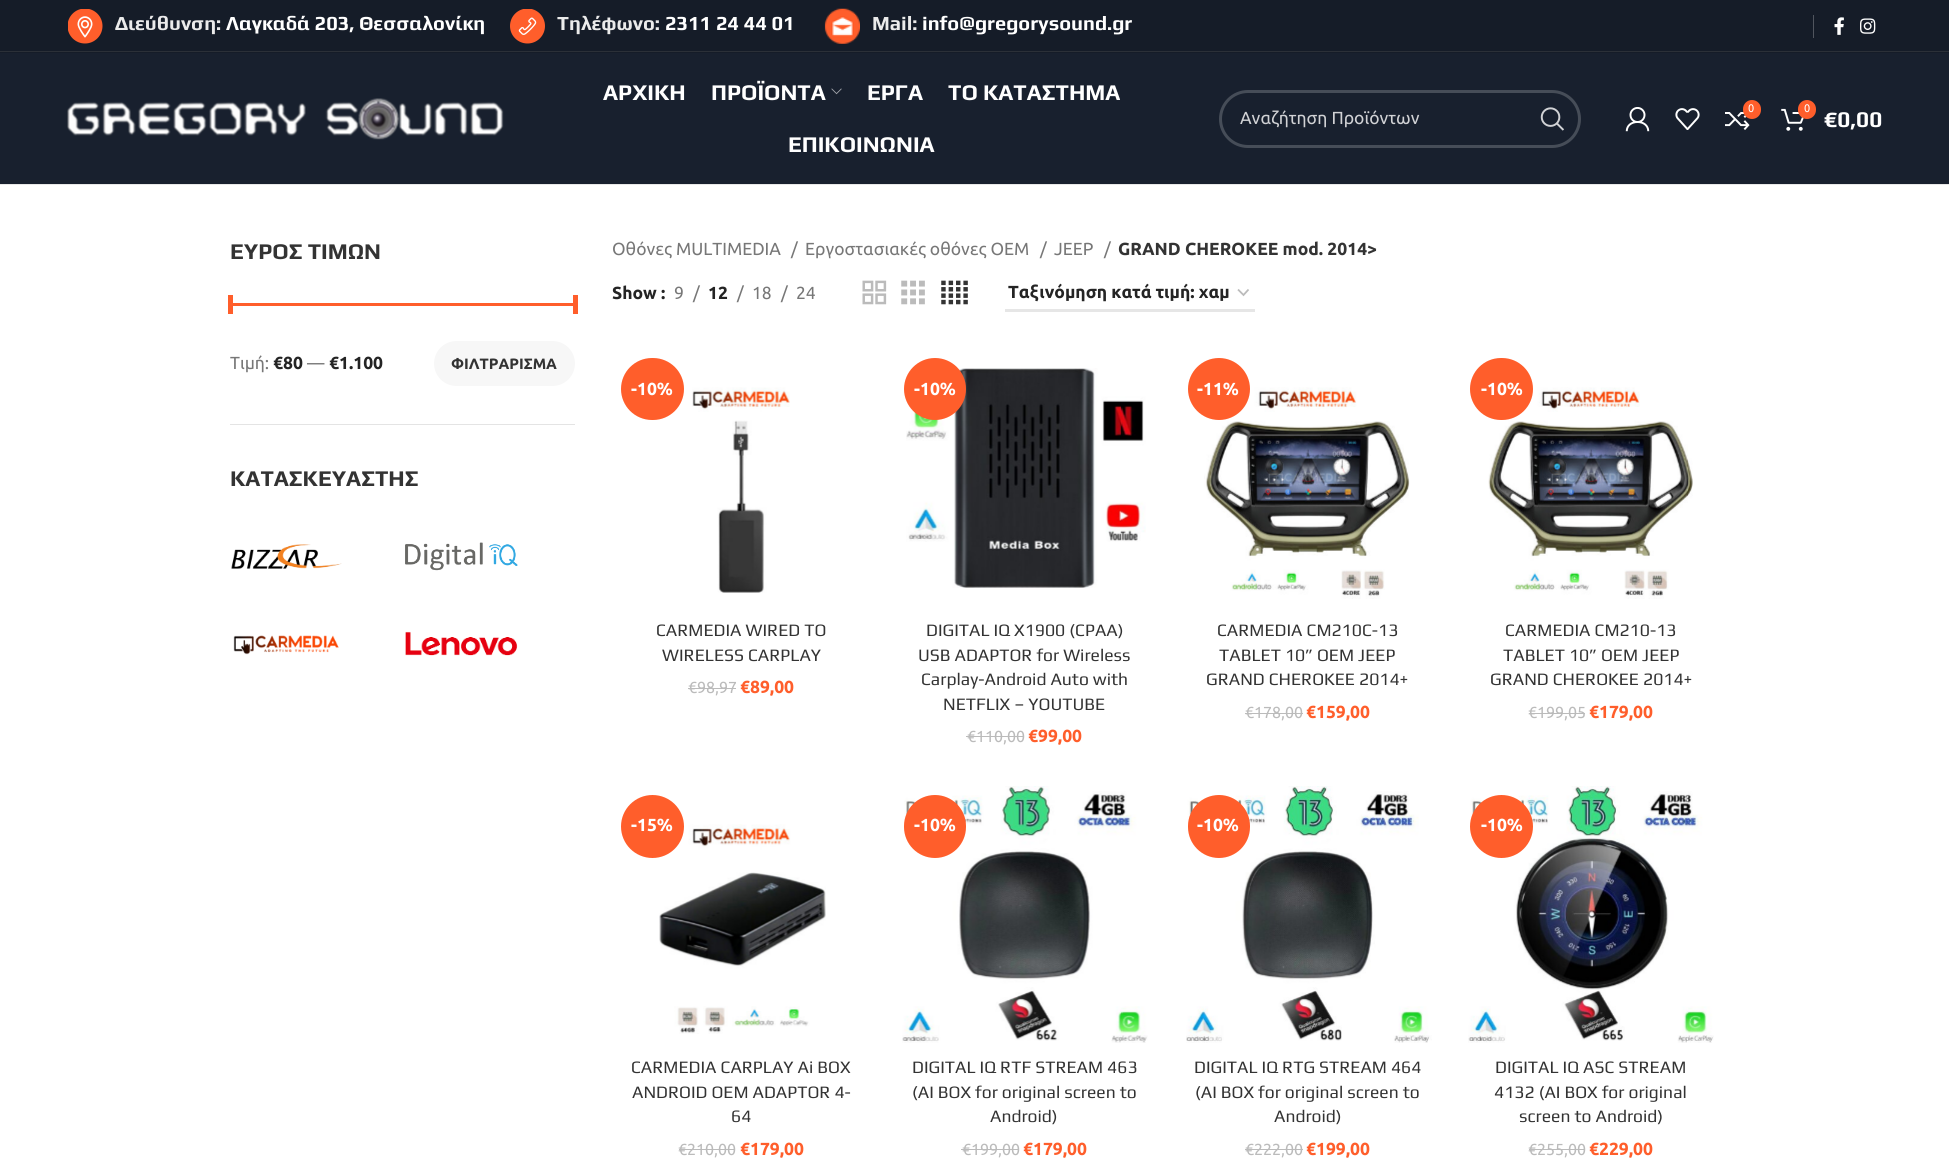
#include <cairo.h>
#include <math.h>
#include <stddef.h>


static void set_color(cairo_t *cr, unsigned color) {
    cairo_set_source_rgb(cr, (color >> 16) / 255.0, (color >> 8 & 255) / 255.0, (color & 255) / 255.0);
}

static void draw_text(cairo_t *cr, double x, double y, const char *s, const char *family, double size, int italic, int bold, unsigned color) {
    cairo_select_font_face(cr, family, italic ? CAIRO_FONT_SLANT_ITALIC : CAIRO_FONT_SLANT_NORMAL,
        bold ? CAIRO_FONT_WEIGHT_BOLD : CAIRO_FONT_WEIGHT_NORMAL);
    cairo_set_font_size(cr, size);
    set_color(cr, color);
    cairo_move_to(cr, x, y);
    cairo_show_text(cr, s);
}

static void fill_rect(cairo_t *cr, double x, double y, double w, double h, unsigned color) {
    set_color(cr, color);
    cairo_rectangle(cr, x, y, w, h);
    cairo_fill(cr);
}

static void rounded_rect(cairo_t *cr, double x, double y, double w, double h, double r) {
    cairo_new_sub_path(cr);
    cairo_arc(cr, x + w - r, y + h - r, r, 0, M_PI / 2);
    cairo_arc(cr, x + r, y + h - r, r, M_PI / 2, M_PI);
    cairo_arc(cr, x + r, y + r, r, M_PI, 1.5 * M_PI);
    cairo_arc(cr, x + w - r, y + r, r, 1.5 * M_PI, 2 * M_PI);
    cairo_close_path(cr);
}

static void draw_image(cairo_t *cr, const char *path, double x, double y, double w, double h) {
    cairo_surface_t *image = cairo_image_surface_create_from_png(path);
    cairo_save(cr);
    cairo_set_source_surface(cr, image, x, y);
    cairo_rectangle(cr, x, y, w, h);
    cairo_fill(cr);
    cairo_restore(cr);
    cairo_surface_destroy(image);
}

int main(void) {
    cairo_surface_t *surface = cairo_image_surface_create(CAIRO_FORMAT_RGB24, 1949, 1165);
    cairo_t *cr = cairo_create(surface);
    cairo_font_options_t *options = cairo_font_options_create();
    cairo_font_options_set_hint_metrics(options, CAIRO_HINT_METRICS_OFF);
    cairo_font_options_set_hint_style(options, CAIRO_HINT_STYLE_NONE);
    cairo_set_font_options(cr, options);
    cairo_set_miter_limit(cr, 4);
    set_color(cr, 0xFFFFFF);
    cairo_paint(cr);
    fill_rect(cr, 0, 0, 1949, 53, 0x151C28);
    fill_rect(cr, 0, 51, 1949, 1, 0x2B3038);
    draw_image(cr, "assets/img1.png", 68, 9, 35, 35);
    draw_text(cr, 115, 30, "Διεύθυνση:", "Play", 20, 0, 1, 0xEBEBEB);
    draw_text(cr, 226, 30, "Λαγκαδά 203, Θεσσαλονίκη", "Play", 20, 0, 1, 0xFFFFFF);
    draw_image(cr, "assets/img2.png", 510, 9, 35, 35);
    draw_text(cr, 557, 30, "Τηλέφωνο:", "Play", 20, 0, 1, 0xEBEBEB);
    draw_text(cr, 665, 30, "2311 24 44 01", "Play", 20, 0, 1, 0xFFFFFF);
    draw_image(cr, "assets/img3.png", 824, 8, 36, 36);
    draw_text(cr, 872, 30, "Mail:", "Play", 20, 0, 1, 0xEBEBEB);
    draw_text(cr, 922, 30, "info@gregorysound.gr", "Play", 20, 0, 1, 0xFFFFFF);
    fill_rect(cr, 1813, 15, 1, 23, 0x50555E);
    draw_image(cr, "assets/img4.png", 1834, 17, 10, 18);
    draw_image(cr, "assets/img5.png", 1860, 18, 16, 16);
    fill_rect(cr, 0, 53, 1949, 131, 0x18202E);
    fill_rect(cr, 0, 184, 1949, 1, 0xE8E8E8);
    draw_image(cr, "assets/img6.png", 67, 98, 437, 42);
    draw_text(cr, 603, 100, "ΑΡΧΙΚΗ", "Play", 22.5, 0, 1, 0xFFFFFF);
    draw_text(cr, 711, 100, "ΠΡΟΪΟΝΤΑ", "Play", 22.5, 0, 1, 0xFFFFFF);
    draw_image(cr, "assets/img7.png", 831, 88, 11, 7);
    draw_text(cr, 867, 100, "ΕΡΓΑ", "Play", 22.5, 0, 1, 0xFFFFFF);
    draw_text(cr, 948, 100, "ΤΟ ΚΑΤΑΣΤΗΜΑ", "Play", 22.5, 0, 1, 0xFFFFFF);
    draw_text(cr, 788, 152, "ΕΠΙΚΟΙΝΩΝΙΑ", "Play", 22.5, 0, 1, 0xFFFFFF);
    rounded_rect(cr, 1220.5, 91.5, 359, 55, 27.5);
    set_color(cr, 0x464D58);
    cairo_set_line_width(cr, 3);
    cairo_stroke(cr);
    draw_text(cr, 1240, 124, "Αναζήτηση Προϊόντων", "Ubuntu", 17.5, 0, 0, 0xD1D2D5);
    draw_image(cr, "assets/img8.png", 1540, 107, 24, 24);
    draw_image(cr, "assets/img9.png", 1625, 107, 25, 25);
    draw_image(cr, "assets/img10.png", 1675, 108, 25, 22);
    draw_image(cr, "assets/img11.png", 1725, 112, 25, 18);
    set_color(cr, 0xFF5E2B);
    rounded_rect(cr, 1743, 100, 18, 19, 9);
    cairo_fill(cr);
    draw_text(cr, 1748, 112, "0", "Ubuntu", 11, 0, 0, 0xFFFFFF);
    draw_image(cr, "assets/img12.png", 1781, 108, 23, 23);
    set_color(cr, 0xFF5E2B);
    rounded_rect(cr, 1798, 100, 18, 19, 9);
    cairo_fill(cr);
    draw_text(cr, 1804, 112, "0", "Ubuntu", 11, 0, 0, 0xFFFFFF);
    draw_text(cr, 1824, 127, "€0,00", "Play", 22.5, 0, 1, 0xFFFFFF);
    fill_rect(cr, 230, 424, 345, 1, 0xE4E4E4);
    draw_text(cr, 230, 259, "ΕΥΡΟΣ ΤΙΜΩΝ", "Play", 22.5, 0, 1, 0x333333);
    fill_rect(cr, 230, 303, 345, 3, 0xFF5E2B);
    fill_rect(cr, 228, 295, 5, 19, 0xFF5E2B);
    fill_rect(cr, 573, 295, 5, 19, 0xFF5E2B);
    draw_text(cr, 230, 369, "Τιμή:", "Ubuntu", 17.5, 0, 0, 0x777777);
    draw_text(cr, 273, 369, "€80", "Ubuntu", 17.5, 0, 1, 0x242424);
    draw_text(cr, 307, 369, "—", "Ubuntu", 17.5, 0, 0, 0x777777);
    draw_text(cr, 329, 369, "€1.100", "Ubuntu", 17.5, 0, 1, 0x242424);
    set_color(cr, 0xF7F7F7);
    rounded_rect(cr, 434, 341, 141, 45, 22.5);
    cairo_fill(cr);
    draw_text(cr, 451, 369, "ΦΙΛΤΡΑΡΙΣΜΑ", "Ubuntu", 15, 0, 1, 0x333333);
    draw_text(cr, 230, 486, "ΚΑΤΑΣΚΕΥΑΣΤΗΣ", "Play", 22.5, 0, 1, 0x333333);
    draw_image(cr, "assets/img13.png", 231, 544, 111, 25);
    draw_image(cr, "assets/img14.png", 405, 542, 113, 29);
    draw_image(cr, "assets/img15.png", 233, 635, 106, 20);
    draw_image(cr, "assets/img16.png", 405, 631, 113, 25);
    draw_text(cr, 612, 255, "Οθόνες MULTIMEDIA", "Ubuntu", 17.5, 0, 0, 0x777777);
    draw_text(cr, 791, 255, "/", "Ubuntu", 17.5, 0, 0, 0x777777);
    draw_text(cr, 805, 255, "Εργοστασιακές οθόνες OEM", "Ubuntu", 17.5, 0, 0, 0x777777);
    draw_text(cr, 1040, 255, "/", "Ubuntu", 17.5, 0, 0, 0x777777);
    draw_text(cr, 1054, 255, "JEEP", "Ubuntu", 17.5, 0, 0, 0x777777);
    draw_text(cr, 1104, 255, "/", "Ubuntu", 17.5, 0, 0, 0x777777);
    draw_text(cr, 1118, 255, "GRAND CHEROKEE mod. 2014>", "Ubuntu", 17.5, 0, 1, 0x333333);
    draw_text(cr, 612, 299, "Show :", "Ubuntu", 17.5, 0, 1, 0x242424);
    draw_text(cr, 674, 299, "9", "Ubuntu", 17.5, 0, 0, 0x777777);
    draw_text(cr, 693, 299, "/", "Ubuntu", 17.5, 0, 0, 0x777777);
    draw_text(cr, 708, 299, "12", "Ubuntu", 17.5, 0, 1, 0x242424);
    draw_text(cr, 737, 299, "/", "Ubuntu", 17.5, 0, 0, 0x777777);
    draw_text(cr, 752, 299, "18", "Ubuntu", 17.5, 0, 0, 0x777777);
    draw_text(cr, 781, 299, "/", "Ubuntu", 17.5, 0, 0, 0x777777);
    draw_text(cr, 796, 299, "24", "Ubuntu", 17.5, 0, 0, 0x777777);
    draw_image(cr, "assets/img17.png", 862, 280, 25, 25);
    draw_image(cr, "assets/img18.png", 901, 280, 24, 25);
    draw_image(cr, "assets/img19.png", 941, 280, 27, 25);
    cairo_new_path(cr);
    cairo_move_to(cr, 1238, 289.5);
    cairo_line_to(cr, 1243.5, 295);
    cairo_line_to(cr, 1248.5, 289.5);
    set_color(cr, 0xBBBBBB);
    cairo_set_line_width(cr, 1.8);
    cairo_stroke(cr);
    fill_rect(cr, 1005, 309, 250, 3, 0xE6E6E6);
    draw_text(cr, 1008, 298, "Ταξινόμηση κατά τιμή: χαμ", "Ubuntu", 17.5, 0, 1, 0x242424);
    set_color(cr, 0xFF5E2B);
    rounded_rect(cr, 621, 358, 63, 62, 31);
    cairo_fill(cr);
    draw_text(cr, 631, 395, "-10%", "Ubuntu", 17.5, 0, 1, 0xFFFFFF);
    draw_image(cr, "assets/img20.png", 692, 387, 98, 206);
    draw_text(cr, 656, 636, "CARMEDIA WIRED TO", "Play", 17.5, 0, 0, 0x333333);
    draw_text(cr, 662, 661, "WIRELESS CARPLAY", "Play", 17.5, 0, 0, 0x333333);
    draw_text(cr, 688, 693, "€98,97", "Ubuntu", 16, 0, 0, 0xBBBBBB);
    fill_rect(cr, 688, 688, 48, 1, 0xBBBBBB);
    draw_text(cr, 740, 693, "€89,00", "Ubuntu", 17.5, 0, 1, 0xFF5E2B);
    draw_image(cr, "assets/img21.png", 906, 368, 240, 220);
    cairo_arc(cr, 935, 389, 31, 0, 2 * M_PI);
    cairo_fill(cr);
    draw_text(cr, 914, 395, "-10%", "Ubuntu", 17.5, 0, 1, 0xFFFFFF);
    draw_text(cr, 926, 636, "DIGITAL IQ X1900 (CPAA)", "Play", 17.5, 0, 0, 0x333333);
    draw_text(cr, 918, 661, "USB ADAPTOR for Wireless", "Play", 17.5, 0, 0, 0x333333);
    draw_text(cr, 921, 685, "Carplay-Android Auto with", "Play", 17.5, 0, 0, 0x333333);
    draw_text(cr, 943, 710, "NETFLIX – YOUTUBE", "Play", 17.5, 0, 0, 0x333333);
    draw_text(cr, 967, 742, "€110,00", "Ubuntu", 16, 0, 0, 0xBBBBBB);
    fill_rect(cr, 966, 736, 58, 1, 0xBBBBBB);
    draw_text(cr, 1028, 742, "€99,00", "Ubuntu", 17.5, 0, 1, 0xFF5E2B);
    draw_image(cr, "assets/img22.png", 1204, 387, 206, 212);
    cairo_arc(cr, 1219, 389, 31, 0, 2 * M_PI);
    cairo_fill(cr);
    draw_text(cr, 1197, 395, "-11%", "Ubuntu", 17.5, 0, 1, 0xFFFFFF);
    draw_text(cr, 1217, 636, "CARMEDIA CM210C-13", "Play", 17.5, 0, 0, 0x333333);
    draw_text(cr, 1219, 661, "TABLET 10” OEM JEEP", "Play", 17.5, 0, 0, 0x333333);
    draw_text(cr, 1206, 685, "GRAND CHEROKEE 2014+", "Play", 17.5, 0, 0, 0x333333);
    draw_text(cr, 1245, 718, "€178,00", "Ubuntu", 16, 0, 0, 0xBBBBBB);
    fill_rect(cr, 1245, 713, 58, 1, 0xBBBBBB);
    draw_text(cr, 1306, 718, "€159,00", "Ubuntu", 17.5, 0, 1, 0xFF5E2B);
    draw_image(cr, "assets/img23.png", 1488, 387, 205, 212);
    rounded_rect(cr, 1470, 358, 63, 62, 31);
    cairo_fill(cr);
    draw_text(cr, 1481, 395, "-10%", "Ubuntu", 17.5, 0, 1, 0xFFFFFF);
    draw_text(cr, 1505, 636, "CARMEDIA CM210-13", "Play", 17.5, 0, 0, 0x333333);
    draw_text(cr, 1503, 661, "TABLET 10” OEM JEEP", "Play", 17.5, 0, 0, 0x333333);
    draw_text(cr, 1490, 685, "GRAND CHEROKEE 2014+", "Play", 17.5, 0, 0, 0x333333);
    draw_text(cr, 1528, 718, "€199,05", "Ubuntu", 16, 0, 0, 0xBBBBBB);
    fill_rect(cr, 1529, 713, 56, 1, 0xBBBBBB);
    draw_text(cr, 1589, 718, "€179,00", "Ubuntu", 17.5, 0, 1, 0xFF5E2B);
    draw_image(cr, "assets/img24.png", 659, 824, 167, 210);
    cairo_arc(cr, 652.5, 826.5, 31.5, 0, 2 * M_PI);
    cairo_fill(cr);
    draw_text(cr, 631, 831, "-15%", "Ubuntu", 17.5, 0, 1, 0xFFFFFF);
    draw_text(cr, 631, 1073, "CARMEDIA CARPLAY Ai BOX", "Play", 17.5, 0, 0, 0x333333);
    draw_text(cr, 632, 1098, "ANDROID OEM ADAPTOR 4-", "Play", 17.5, 0, 0, 0x333333);
    draw_text(cr, 731, 1122, "64", "Play", 17.5, 0, 0, 0x333333);
    draw_text(cr, 678, 1155, "€210,00", "Ubuntu", 16, 0, 0, 0xBBBBBB);
    fill_rect(cr, 679, 1149, 56, 1, 0xBBBBBB);
    draw_text(cr, 740, 1155, "€179,00", "Ubuntu", 17.5, 0, 1, 0xFF5E2B);
    draw_image(cr, "assets/img25.png", 902, 786, 246, 257);
    rounded_rect(cr, 904, 795, 62, 63, 31);
    cairo_fill(cr);
    draw_text(cr, 914, 831, "-10%", "Ubuntu", 17.5, 0, 1, 0xFFFFFF);
    draw_text(cr, 912, 1073, "DIGITAL IQ RTF STREAM 463", "Play", 17.5, 0, 0, 0x333333);
    draw_text(cr, 912, 1098, "(AI BOX for original screen to", "Play", 17.5, 0, 0, 0x333333);
    draw_text(cr, 990, 1122, "Android)", "Play", 17.5, 0, 0, 0x333333);
    draw_text(cr, 962, 1155, "€199,00", "Ubuntu", 16, 0, 0, 0xBBBBBB);
    fill_rect(cr, 961, 1149, 58, 1, 0xBBBBBB);
    draw_text(cr, 1023, 1155, "€179,00", "Ubuntu", 17.5, 0, 1, 0xFF5E2B);
    draw_image(cr, "assets/img26.png", 1186, 786, 246, 257);
    rounded_rect(cr, 1188, 795, 62, 63, 31);
    cairo_fill(cr);
    draw_text(cr, 1197, 831, "-10%", "Ubuntu", 17.5, 0, 1, 0xFFFFFF);
    draw_text(cr, 1194, 1073, "DIGITAL IQ RTG STREAM 464", "Play", 17.5, 0, 0, 0x333333);
    draw_text(cr, 1195, 1098, "(AI BOX for original screen to", "Play", 17.5, 0, 0, 0x333333);
    draw_text(cr, 1274, 1122, "Android)", "Play", 17.5, 0, 0, 0x333333);
    draw_text(cr, 1245, 1155, "€222,00", "Ubuntu", 16, 0, 0, 0xBBBBBB);
    fill_rect(cr, 1245, 1149, 58, 1, 0xBBBBBB);
    draw_text(cr, 1306, 1155, "€199,00", "Ubuntu", 17.5, 0, 1, 0xFF5E2B);
    draw_image(cr, "assets/img27.png", 1468, 786, 246, 257);
    cairo_arc(cr, 1501.5, 826.5, 31.5, 0, 2 * M_PI);
    cairo_fill(cr);
    draw_text(cr, 1481, 831, "-10%", "Ubuntu", 17.5, 0, 1, 0xFFFFFF);
    draw_text(cr, 1495, 1073, "DIGITAL IQ ASC STREAM", "Play", 17.5, 0, 0, 0x333333);
    draw_text(cr, 1494, 1098, "4132 (AI BOX for original", "Play", 17.5, 0, 0, 0x333333);
    draw_text(cr, 1519, 1122, "screen to Android)", "Play", 17.5, 0, 0, 0x333333);
    draw_text(cr, 1528, 1155, "€255,00", "Ubuntu", 16, 0, 0, 0xBBBBBB);
    fill_rect(cr, 1529, 1149, 56, 1, 0xBBBBBB);
    draw_text(cr, 1589, 1155, "€229,00", "Ubuntu", 17.5, 0, 1, 0xFF5E2B);
    cairo_surface_write_to_png(surface, "output.png");
    cairo_font_options_destroy(options);
    cairo_destroy(cr);
    cairo_surface_destroy(surface);
    return 0;
}
